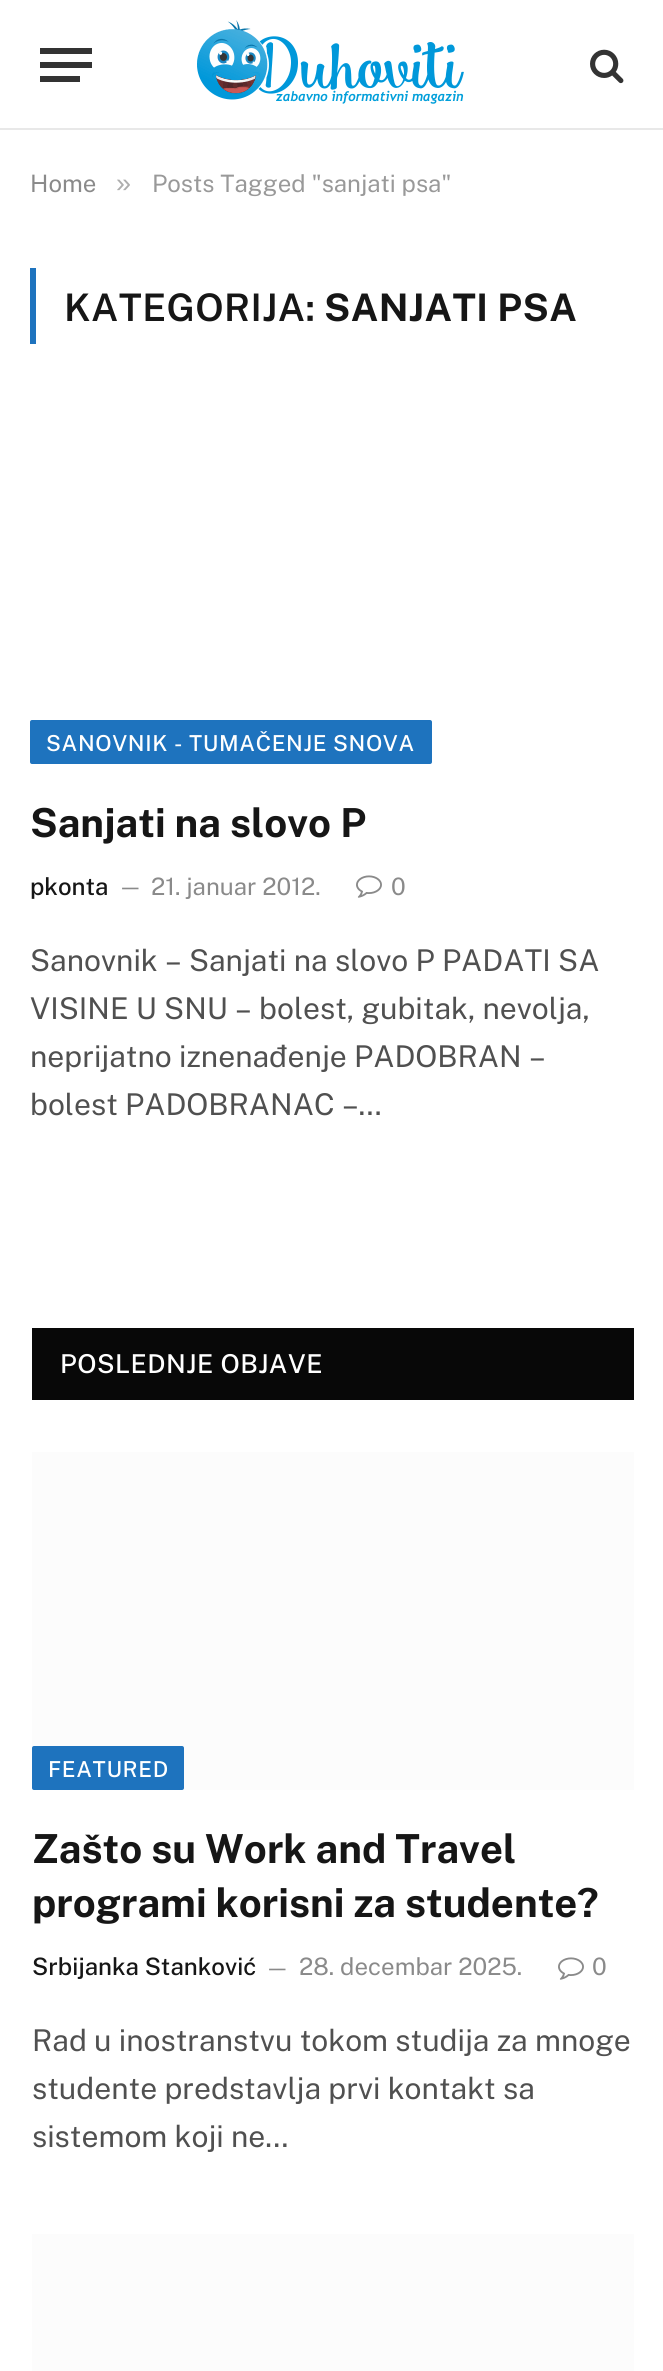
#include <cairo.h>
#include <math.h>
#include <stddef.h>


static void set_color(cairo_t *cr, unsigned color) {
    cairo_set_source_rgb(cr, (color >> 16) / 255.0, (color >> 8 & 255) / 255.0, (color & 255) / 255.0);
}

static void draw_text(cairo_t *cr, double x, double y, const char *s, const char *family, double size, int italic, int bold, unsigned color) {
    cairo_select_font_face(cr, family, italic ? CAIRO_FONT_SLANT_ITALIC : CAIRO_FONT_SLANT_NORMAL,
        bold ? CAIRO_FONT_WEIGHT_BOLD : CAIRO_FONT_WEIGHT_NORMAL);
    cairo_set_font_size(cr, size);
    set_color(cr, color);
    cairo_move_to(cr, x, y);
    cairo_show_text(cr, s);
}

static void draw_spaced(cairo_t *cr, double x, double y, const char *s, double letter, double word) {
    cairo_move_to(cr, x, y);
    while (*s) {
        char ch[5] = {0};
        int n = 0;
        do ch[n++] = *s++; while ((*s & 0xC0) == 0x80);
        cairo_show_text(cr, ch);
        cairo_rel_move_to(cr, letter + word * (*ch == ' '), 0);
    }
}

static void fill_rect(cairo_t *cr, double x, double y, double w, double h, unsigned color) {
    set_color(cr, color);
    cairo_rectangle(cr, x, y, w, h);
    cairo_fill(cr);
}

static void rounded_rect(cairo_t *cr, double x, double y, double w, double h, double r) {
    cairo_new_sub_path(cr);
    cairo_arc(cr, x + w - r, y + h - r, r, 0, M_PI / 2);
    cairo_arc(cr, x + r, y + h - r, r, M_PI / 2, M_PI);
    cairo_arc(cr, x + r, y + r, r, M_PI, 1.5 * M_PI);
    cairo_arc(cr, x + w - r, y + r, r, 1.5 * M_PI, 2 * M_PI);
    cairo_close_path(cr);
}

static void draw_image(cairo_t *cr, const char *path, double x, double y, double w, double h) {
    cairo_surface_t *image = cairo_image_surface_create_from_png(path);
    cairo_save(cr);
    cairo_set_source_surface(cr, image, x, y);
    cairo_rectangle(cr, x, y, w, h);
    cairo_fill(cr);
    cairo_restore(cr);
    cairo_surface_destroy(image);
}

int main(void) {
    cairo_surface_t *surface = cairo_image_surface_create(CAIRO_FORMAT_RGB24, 663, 2371);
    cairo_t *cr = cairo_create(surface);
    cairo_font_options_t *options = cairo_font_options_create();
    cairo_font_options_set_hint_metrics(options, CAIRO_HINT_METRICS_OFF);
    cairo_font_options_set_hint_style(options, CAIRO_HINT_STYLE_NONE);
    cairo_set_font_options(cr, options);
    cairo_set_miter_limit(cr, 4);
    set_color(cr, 0xFFFFFF);
    cairo_paint(cr);
    fill_rect(cr, 0, 128, 663, 2, 0xE8E8E8);
    fill_rect(cr, 40, 76, 40, 6, 0x333333);
    fill_rect(cr, 40, 48, 52, 6, 0x333333);
    fill_rect(cr, 40, 62, 52, 6, 0x333333);
    draw_image(cr, "assets/img1.png", 197, 20, 267, 84);
    draw_image(cr, "assets/img2.png", 590, 49, 34, 35);
    draw_text(cr, 30, 192, "Home", "Public Sans", 24, 0, 0, 0x8A8A8A);
    draw_text(cr, 116, 192, "»", "Liberation Sans", 27, 0, 0, 0xADADAD);
    draw_text(cr, 152, 192, "Posts Tagged \"sanjati psa\"", "Public Sans", 24, 0, 0, 0x999999);
    fill_rect(cr, 30, 268, 6, 76, 0x1E73BE);
    cairo_select_font_face(cr, "Public Sans SemiBold", CAIRO_FONT_SLANT_NORMAL, CAIRO_FONT_WEIGHT_NORMAL);
    cairo_set_font_size(cr, 38);
    set_color(cr, 0x161616);
    draw_spaced(cr, 64, 321, "KATEGORIJA:", 0.4, 0);
    cairo_select_font_face(cr, "Public Sans", CAIRO_FONT_SLANT_NORMAL, CAIRO_FONT_WEIGHT_BOLD);
    draw_spaced(cr, 324, 321, "SANJATI PSA", 0.4, 0);
    set_color(cr, 0x1E73BE);
    rounded_rect(cr, 30, 720, 402, 44, 2);
    cairo_fill(cr);
    cairo_select_font_face(cr, "Public Sans Medium", CAIRO_FONT_SLANT_NORMAL, CAIRO_FONT_WEIGHT_NORMAL);
    cairo_set_font_size(cr, 22);
    set_color(cr, 0xFFFFFF);
    draw_spaced(cr, 46, 751, "SANOVNIK - TUMAČENJE SNOVA", 0.65, 0);
    draw_text(cr, 30, 837, "Sanjati na slovo P", "Public Sans", 40, 0, 1, 0x161616);
    draw_text(cr, 30, 895, "pkonta", "Public Sans Medium", 24, 0, 0, 0x161616);
    draw_text(cr, 118, 894, "—", "Public Sans", 22, 0, 0, 0x8A8A8A);
    draw_text(cr, 151, 895, "21. januar 2012.", "Public Sans", 24, 0, 0, 0x8A8A8A);
    draw_image(cr, "assets/img3.png", 356, 875, 26, 23);
    draw_text(cr, 391, 895, "0", "Public Sans", 24, 0, 0, 0x8A8A8A);
    draw_text(cr, 30, 971, "Sanovnik – Sanjati na slovo P PADATI SA", "Public Sans", 30, 0, 0, 0x505050);
    draw_text(cr, 30, 1019, "VISINE U SNU – bolest, gubitak, nevolja,", "Public Sans", 30, 0, 0, 0x505050);
    draw_text(cr, 30, 1067, "neprijatno iznenađenje PADOBRAN –", "Public Sans", 30, 0, 0, 0x505050);
    draw_text(cr, 30, 1115, "bolest PADOBRANAC –…", "Public Sans", 30, 0, 0, 0x505050);
    fill_rect(cr, 32, 1328, 602, 72, 0x080808);
    cairo_select_font_face(cr, "Public Sans Medium", CAIRO_FONT_SLANT_NORMAL, CAIRO_FONT_WEIGHT_NORMAL);
    cairo_set_font_size(cr, 26);
    set_color(cr, 0xFFFFFF);
    draw_spaced(cr, 60, 1373, "POSLEDNJE OBJAVE", 0.5, 0);
    fill_rect(cr, 32, 1452, 602, 338, 0xFCFCFC);
    set_color(cr, 0x1E73BE);
    rounded_rect(cr, 32, 1746, 152, 44, 2);
    cairo_fill(cr);
    cairo_set_font_size(cr, 22);
    set_color(cr, 0xFFFFFF);
    draw_spaced(cr, 48, 1777, "FEATURED", 0.65, 0);
    draw_text(cr, 32, 1863, "Zašto su Work and Travel", "Public Sans", 40, 0, 1, 0x161616);
    draw_text(cr, 32, 1917, "programi korisni za studente?", "Public Sans", 40, 0, 1, 0x161616);
    draw_text(cr, 32, 1975, "Srbijanka Stanković", "Public Sans Medium", 24, 0, 0, 0x161616);
    draw_text(cr, 265, 1975, "—", "Public Sans", 22, 0, 0, 0x8A8A8A);
    draw_text(cr, 299, 1975, "28. decembar 2025.", "Public Sans", 24, 0, 0, 0x8A8A8A);
    draw_image(cr, "assets/img3.png", 558, 1957, 26, 23);
    draw_text(cr, 592, 1975, "0", "Public Sans", 24, 0, 0, 0x8A8A8A);
    draw_text(cr, 32, 2051, "Rad u inostranstvu tokom studija za mnoge", "Public Sans", 30, 0, 0, 0x505050);
    draw_text(cr, 32, 2099, "studente predstavlja prvi kontakt sa", "Public Sans", 30, 0, 0, 0x505050);
    draw_text(cr, 32, 2147, "sistemom koji ne…", "Public Sans", 30, 0, 0, 0x505050);
    fill_rect(cr, 32, 2234, 602, 137, 0xFCFCFC);
    cairo_surface_write_to_png(surface, "output.png");
    cairo_font_options_destroy(options);
    cairo_destroy(cr);
    cairo_surface_destroy(surface);
    return 0;
}
